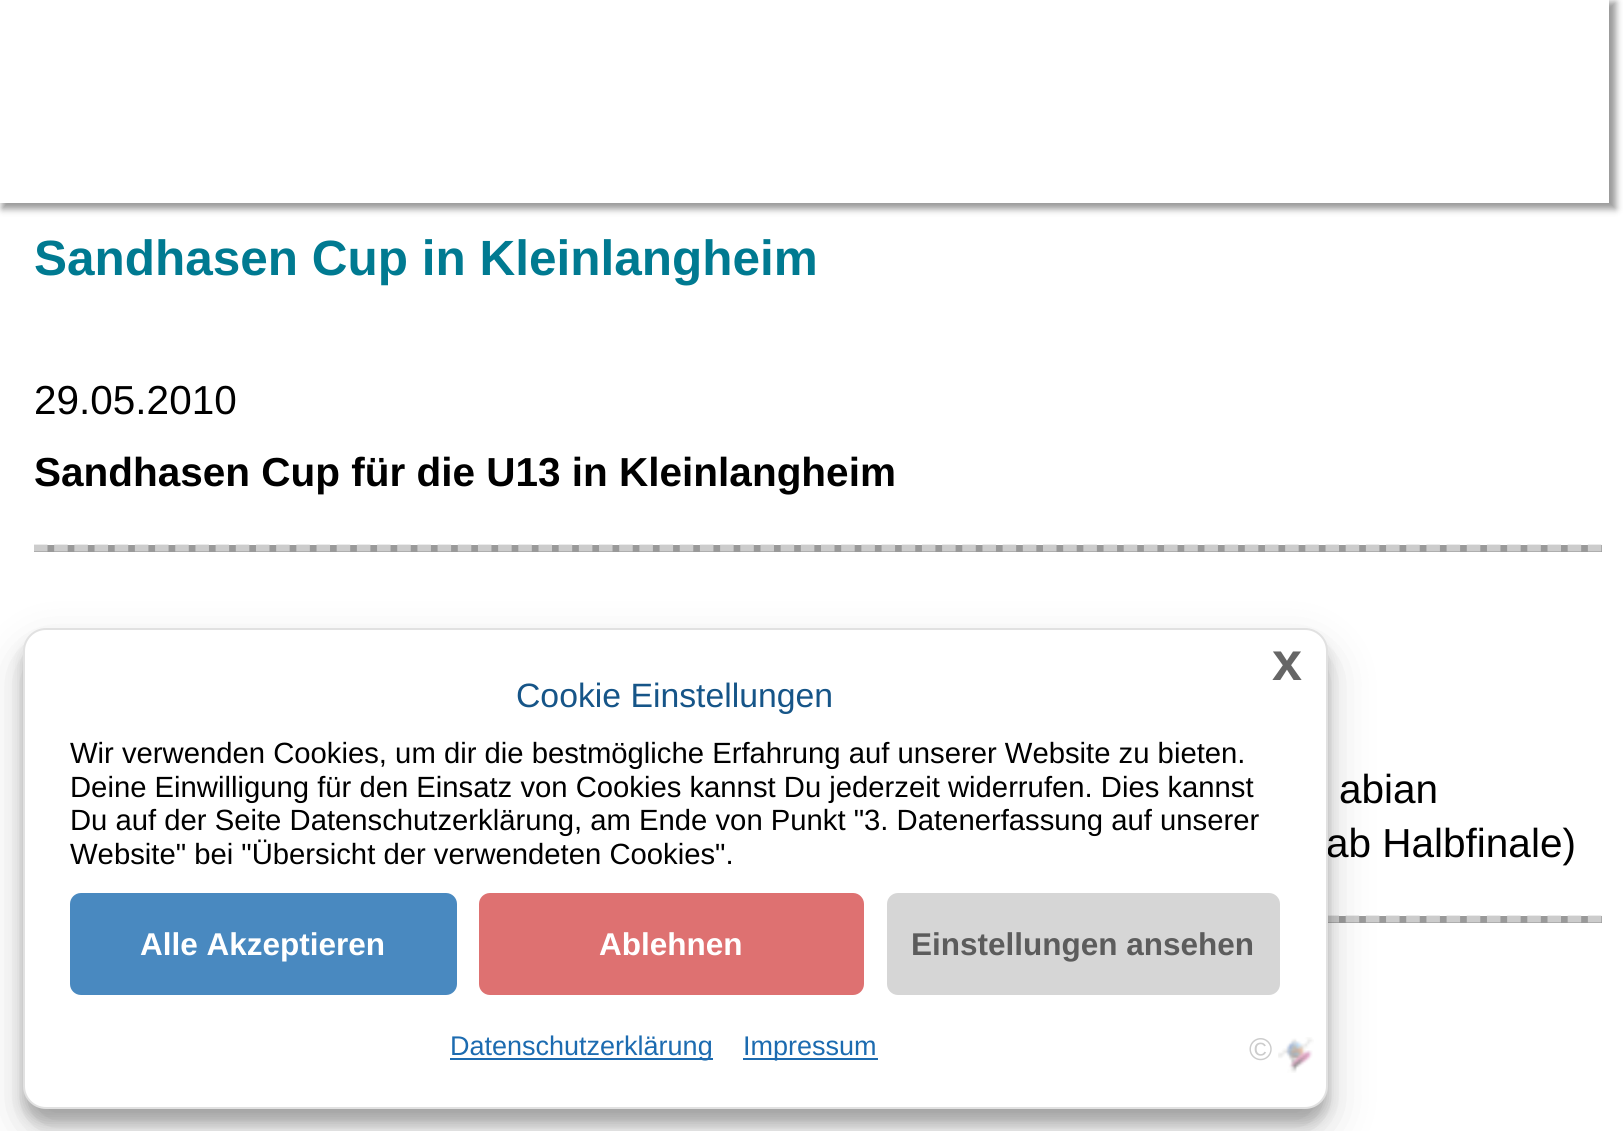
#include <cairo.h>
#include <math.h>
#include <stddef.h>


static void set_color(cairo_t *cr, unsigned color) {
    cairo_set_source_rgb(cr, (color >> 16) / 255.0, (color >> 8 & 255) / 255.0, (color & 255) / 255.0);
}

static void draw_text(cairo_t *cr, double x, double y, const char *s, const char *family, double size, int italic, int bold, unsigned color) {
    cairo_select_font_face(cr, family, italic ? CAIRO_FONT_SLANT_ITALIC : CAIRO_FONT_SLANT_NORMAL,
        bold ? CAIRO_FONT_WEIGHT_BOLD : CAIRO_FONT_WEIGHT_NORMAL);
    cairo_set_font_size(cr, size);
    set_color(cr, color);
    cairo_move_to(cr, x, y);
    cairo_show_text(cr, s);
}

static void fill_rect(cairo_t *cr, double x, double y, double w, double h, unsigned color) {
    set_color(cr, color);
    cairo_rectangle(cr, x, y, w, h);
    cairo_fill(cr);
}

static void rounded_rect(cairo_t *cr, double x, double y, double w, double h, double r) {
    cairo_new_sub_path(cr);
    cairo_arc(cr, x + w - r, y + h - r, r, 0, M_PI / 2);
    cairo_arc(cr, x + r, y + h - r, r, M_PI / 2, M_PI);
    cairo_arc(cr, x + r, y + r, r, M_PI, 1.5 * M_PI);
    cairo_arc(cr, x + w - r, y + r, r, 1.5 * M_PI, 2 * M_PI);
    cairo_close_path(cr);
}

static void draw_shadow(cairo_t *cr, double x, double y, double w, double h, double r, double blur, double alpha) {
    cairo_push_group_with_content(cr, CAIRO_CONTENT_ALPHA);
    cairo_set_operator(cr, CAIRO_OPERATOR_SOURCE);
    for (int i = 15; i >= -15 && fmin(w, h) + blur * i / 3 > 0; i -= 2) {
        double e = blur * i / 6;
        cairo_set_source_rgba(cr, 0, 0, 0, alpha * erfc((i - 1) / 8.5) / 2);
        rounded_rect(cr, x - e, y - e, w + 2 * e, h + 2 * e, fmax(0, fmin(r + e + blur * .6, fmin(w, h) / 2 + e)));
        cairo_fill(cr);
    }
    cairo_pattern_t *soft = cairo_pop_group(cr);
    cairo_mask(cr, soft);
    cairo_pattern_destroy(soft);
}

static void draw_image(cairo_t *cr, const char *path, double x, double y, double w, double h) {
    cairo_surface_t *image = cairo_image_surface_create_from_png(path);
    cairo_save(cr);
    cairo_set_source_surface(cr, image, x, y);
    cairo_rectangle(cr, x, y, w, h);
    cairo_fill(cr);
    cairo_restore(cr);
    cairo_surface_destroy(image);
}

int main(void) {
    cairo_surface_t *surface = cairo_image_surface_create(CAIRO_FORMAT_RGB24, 1623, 1131);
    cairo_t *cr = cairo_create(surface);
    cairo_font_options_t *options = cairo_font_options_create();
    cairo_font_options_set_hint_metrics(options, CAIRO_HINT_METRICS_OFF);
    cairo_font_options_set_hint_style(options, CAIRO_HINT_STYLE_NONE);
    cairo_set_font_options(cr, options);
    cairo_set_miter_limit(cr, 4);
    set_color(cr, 0xFFFFFF);
    cairo_paint(cr);
    cairo_save(cr);
    cairo_set_fill_rule(cr, CAIRO_FILL_RULE_EVEN_ODD);
    cairo_new_path(cr);
    cairo_move_to(cr, 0, 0);
    cairo_line_to(cr, 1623, 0);
    cairo_line_to(cr, 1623, 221);
    cairo_line_to(cr, 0, 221);
    cairo_close_path(cr);
    cairo_move_to(cr, 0, 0);
    cairo_line_to(cr, 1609, 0);
    cairo_line_to(cr, 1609, 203);
    cairo_line_to(cr, 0, 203);
    cairo_close_path(cr);
    cairo_clip(cr);
    set_color(cr, 0x999999);
    draw_shadow(cr, 2, 2, 1614, 207, 0, 3.5, 1);
    cairo_restore(cr);
    draw_text(cr, 34, 275, "Sandhasen Cup in Kleinlangheim", "Liberation Sans", 49.5, 0, 1, 0x007A91);
    draw_text(cr, 34, 414, "29.05.2010", "Liberation Sans", 40.5, 0, 0, 0x000000);
    draw_text(cr, 34, 486, "Sandhasen Cup für die U13 in Kleinlangheim", "Liberation Sans", 40.5, 0, 1, 0x000000);
    fill_rect(cr, 34, 545, 1568, 7, 0x999999);
    cairo_new_path(cr);
    cairo_move_to(cr, 34, 548);
    cairo_line_to(cr, 1602, 548);
    set_color(cr, 0xCCCCCC);
    cairo_set_line_width(cr, 6.8);
    cairo_set_dash(cr, (double[]){13.5, 6.68}, 2, 0);
    cairo_stroke(cr);
    draw_text(cr, 1339, 803, "abian", "Liberation Sans", 40.5, 0, 0, 0x000000);
    draw_text(cr, 1326, 857, "ab Halbfinale)", "Liberation Sans", 40.5, 0, 0, 0x000000);
    fill_rect(cr, 1328, 916, 274, 7, 0x999999);
    cairo_new_path(cr);
    cairo_move_to(cr, 34, 919);
    cairo_line_to(cr, 1602, 919);
    set_color(cr, 0xCCCCCC);
    cairo_stroke(cr);
    set_color(cr, 0x000000);
    draw_shadow(cr, 23, 641, 1305, 482, 23, 7, 0.23);
    draw_shadow(cr, 23, 650, 1305, 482, 23, 22.5, 0.19);
    set_color(cr, 0xFFFFFF);
    rounded_rect(cr, 24, 629, 1303, 479, 22);
    cairo_fill_preserve(cr);
    set_color(cr, 0xE1E1E1);
    cairo_set_line_width(cr, 2);
    cairo_set_dash(cr, NULL, 0, 0);
    cairo_stroke(cr);
    draw_text(cr, 1272, 680, "x", "Liberation Sans", 54, 0, 1, 0x666666);
    draw_text(cr, 516, 707, "Cookie Einstellungen", "Liberation Sans", 33.75, 0, 0, 0x165588);
    draw_text(cr, 70, 763, "Wir verwenden Cookies, um dir die bestmögliche Erfahrung auf unserer Website zu bieten.", "Liberation Sans", 29.25, 0, 0, 0x000000);
    draw_text(cr, 70, 797, "Deine Einwilligung für den Einsatz von Cookies kannst Du jederzeit widerrufen. Dies kannst", "Liberation Sans", 29.25, 0, 0, 0x000000);
    draw_text(cr, 70, 830, "Du auf der Seite Datenschutzerklärung, am Ende von Punkt \"3. Datenerfassung auf unserer", "Liberation Sans", 29.25, 0, 0, 0x000000);
    draw_text(cr, 70, 864, "Website\" bei \"Übersicht der verwendeten Cookies\".", "Liberation Sans", 29.25, 0, 0, 0x000000);
    set_color(cr, 0x4989C0);
    rounded_rect(cr, 71, 894, 385, 100, 10);
    cairo_fill_preserve(cr);
    cairo_stroke(cr);
    draw_text(cr, 140, 955, "Alle Akzeptieren", "Liberation Sans", 31.5, 0, 1, 0xFFFFFF);
    set_color(cr, 0xDE7171);
    rounded_rect(cr, 480, 894, 383, 100, 10);
    cairo_fill_preserve(cr);
    cairo_stroke(cr);
    draw_text(cr, 599, 955, "Ablehnen", "Liberation Sans", 31.5, 0, 1, 0xFFFFFF);
    set_color(cr, 0xD6D6D6);
    rounded_rect(cr, 888, 894, 391, 100, 10);
    cairo_fill_preserve(cr);
    cairo_stroke(cr);
    draw_text(cr, 911, 955, "Einstellungen ansehen", "Liberation Sans", 31.5, 0, 1, 0x5C5C5C);
    fill_rect(cr, 450, 1058, 263, 2, 0x1C6BB0);
    draw_text(cr, 450, 1055, "Datenschutzerklärung", "Liberation Sans", 27, 0, 0, 0x1C6BB0);
    fill_rect(cr, 743, 1058, 135, 2, 0x1C6BB0);
    draw_text(cr, 743, 1055, "Impressum", "Liberation Sans", 27, 0, 0, 0x1C6BB0);
    draw_text(cr, 1249, 1060, "©", "Liberation Sans", 31.5, 0, 0, 0xCCCCCC);
    draw_image(cr, "assets/img1.png", 1278, 1037, 36, 36);
    cairo_surface_write_to_png(surface, "output.png");
    cairo_font_options_destroy(options);
    cairo_destroy(cr);
    cairo_surface_destroy(surface);
    return 0;
}
